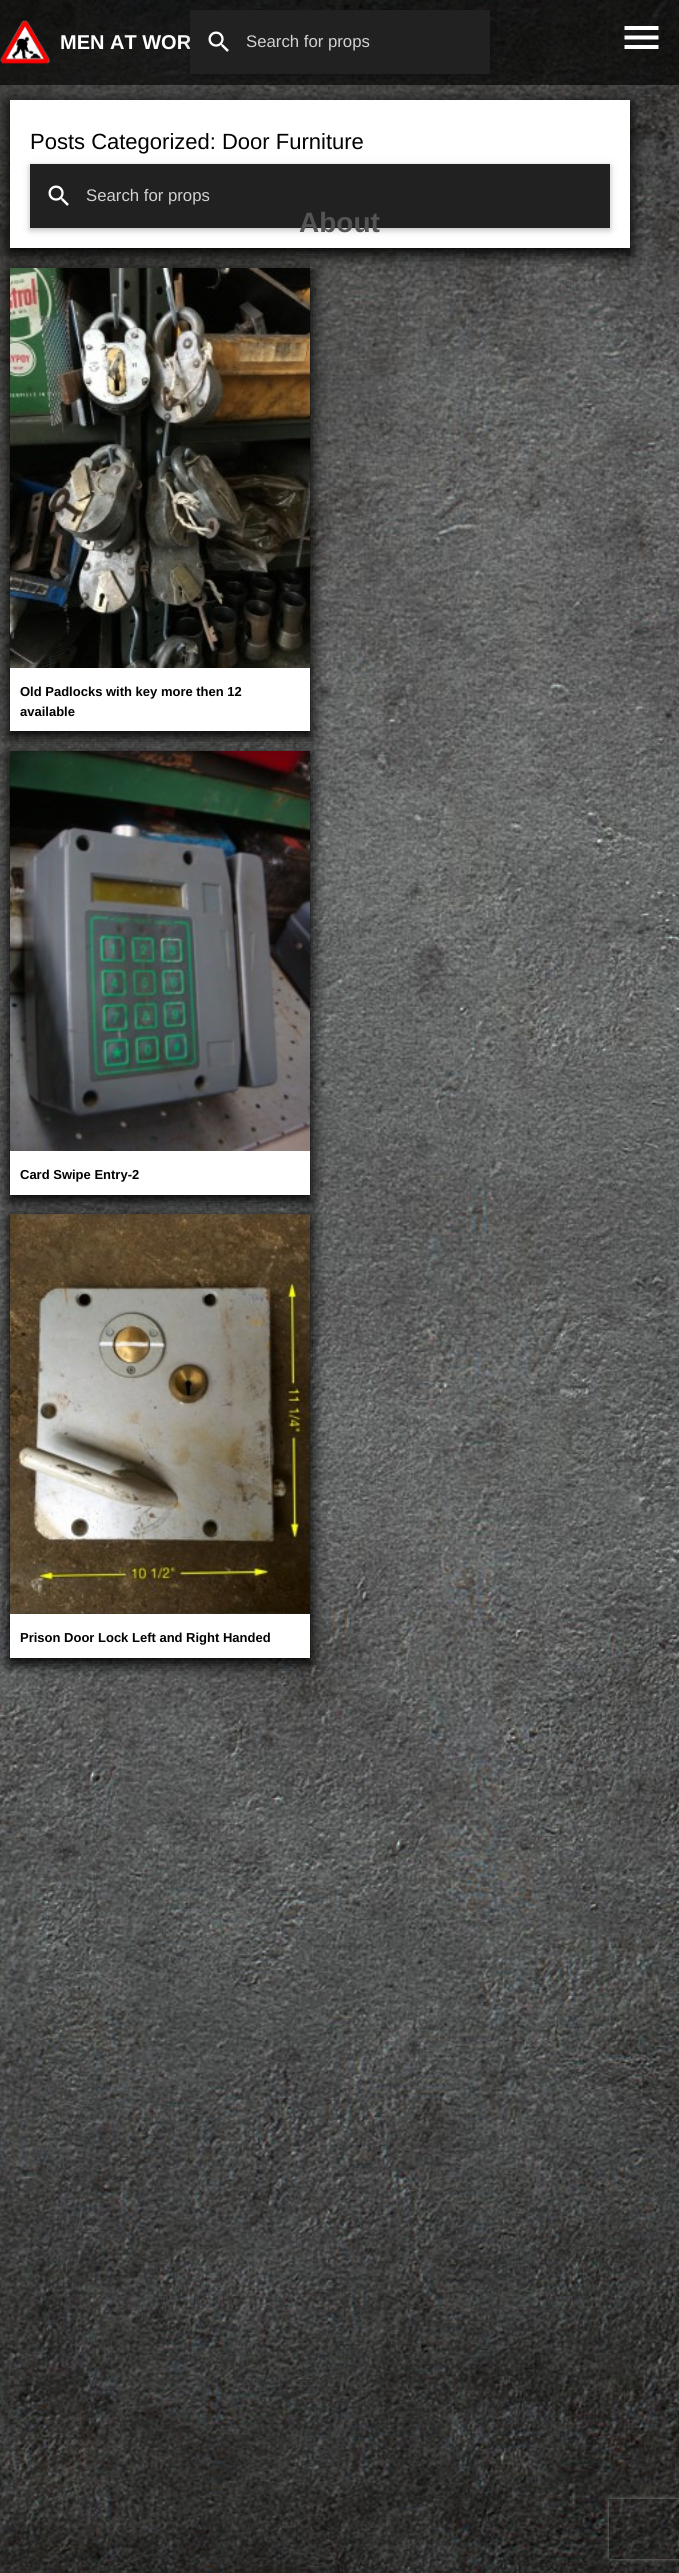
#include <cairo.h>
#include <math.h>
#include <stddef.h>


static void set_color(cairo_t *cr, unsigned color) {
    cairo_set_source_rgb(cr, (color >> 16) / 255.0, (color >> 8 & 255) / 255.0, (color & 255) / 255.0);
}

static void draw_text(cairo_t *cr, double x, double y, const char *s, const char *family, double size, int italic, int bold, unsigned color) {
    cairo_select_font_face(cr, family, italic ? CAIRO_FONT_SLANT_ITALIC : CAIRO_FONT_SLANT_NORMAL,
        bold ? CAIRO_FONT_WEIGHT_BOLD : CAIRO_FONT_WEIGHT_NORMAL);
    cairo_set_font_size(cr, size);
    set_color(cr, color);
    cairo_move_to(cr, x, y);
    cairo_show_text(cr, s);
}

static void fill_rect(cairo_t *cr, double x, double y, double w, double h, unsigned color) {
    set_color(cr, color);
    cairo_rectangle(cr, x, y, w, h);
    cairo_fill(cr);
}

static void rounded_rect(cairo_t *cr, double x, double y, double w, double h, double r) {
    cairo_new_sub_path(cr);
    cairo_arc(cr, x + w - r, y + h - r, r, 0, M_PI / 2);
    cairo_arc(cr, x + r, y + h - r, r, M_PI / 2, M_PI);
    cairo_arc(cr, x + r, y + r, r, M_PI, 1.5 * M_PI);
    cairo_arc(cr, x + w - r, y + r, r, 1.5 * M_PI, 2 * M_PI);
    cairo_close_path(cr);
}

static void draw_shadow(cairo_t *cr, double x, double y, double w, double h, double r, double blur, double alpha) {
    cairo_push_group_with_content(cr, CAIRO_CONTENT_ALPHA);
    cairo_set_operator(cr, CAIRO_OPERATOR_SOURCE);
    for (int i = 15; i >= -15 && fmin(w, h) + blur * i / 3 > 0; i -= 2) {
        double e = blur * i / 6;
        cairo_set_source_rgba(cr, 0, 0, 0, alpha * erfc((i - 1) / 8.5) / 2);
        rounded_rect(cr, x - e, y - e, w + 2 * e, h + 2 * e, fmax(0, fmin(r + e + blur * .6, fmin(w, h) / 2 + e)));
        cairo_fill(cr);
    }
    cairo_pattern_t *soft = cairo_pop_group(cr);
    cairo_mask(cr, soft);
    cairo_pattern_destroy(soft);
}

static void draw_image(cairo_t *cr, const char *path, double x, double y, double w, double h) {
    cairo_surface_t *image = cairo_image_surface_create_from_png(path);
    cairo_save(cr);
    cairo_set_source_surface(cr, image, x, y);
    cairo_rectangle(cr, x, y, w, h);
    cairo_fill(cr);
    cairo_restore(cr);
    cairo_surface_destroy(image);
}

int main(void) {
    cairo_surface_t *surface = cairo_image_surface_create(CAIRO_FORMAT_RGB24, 679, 2573);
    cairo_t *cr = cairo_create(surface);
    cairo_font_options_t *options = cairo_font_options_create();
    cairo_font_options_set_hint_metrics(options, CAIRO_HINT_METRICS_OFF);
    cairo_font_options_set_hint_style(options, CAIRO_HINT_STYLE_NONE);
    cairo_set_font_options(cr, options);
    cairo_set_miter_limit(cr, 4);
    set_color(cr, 0xFFFFFF);
    cairo_paint(cr);
    draw_image(cr, "assets/img1.png", 0, 0, 679, 2573);
    set_color(cr, 0x000000);
    draw_shadow(cr, 8, 103, 624, 152, 0, 7.5, 1);
    cairo_set_source_rgba(cr, 0, 0, 0, 0.65);
    cairo_rectangle(cr, 0, 0, 679, 85);
    cairo_fill(cr);
    draw_image(cr, "assets/img2.png", 0, 20, 50, 44);
    draw_text(cr, 60, 49, "MEN AT WOR", "Liberation Sans", 20, 0, 1, 0xFFFFFF);
    set_color(cr, 0x000000);
    draw_shadow(cr, 190, 12, 300, 64, 0, 5, 0.12);
    draw_shadow(cr, 190, 12, 300, 64, 0, 2.5, 0.16);
    fill_rect(cr, 190, 10, 300, 64, 0x212121);
    draw_image(cr, "assets/img3.png", 208, 31, 21, 21);
    draw_text(cr, 246, 47, "Search for props", "Liberation Sans", 16.75, 0, 0, 0xD1D1D1);
    set_color(cr, 0xFFFFFF);
    cairo_new_path(cr);
    cairo_move_to(cr, 624.5, 26);
    cairo_line_to(cr, 658.5, 26);
    cairo_line_to(cr, 658.5, 30);
    cairo_line_to(cr, 624.5, 30);
    cairo_close_path(cr);
    cairo_move_to(cr, 624.5, 39.5);
    cairo_line_to(cr, 624.5, 35.5);
    cairo_line_to(cr, 658.5, 35.5);
    cairo_line_to(cr, 658.5, 39.5);
    cairo_close_path(cr);
    cairo_move_to(cr, 624.5, 49);
    cairo_line_to(cr, 624.5, 45);
    cairo_line_to(cr, 658.5, 45);
    cairo_line_to(cr, 658.5, 49);
    cairo_close_path(cr);
    cairo_fill(cr);
    fill_rect(cr, 10, 100, 620, 148, 0xFFFFFF);
    set_color(cr, 0x000000);
    draw_shadow(cr, 30, 166, 580, 64, 0, 5, 0.12);
    draw_text(cr, 30, 149, "Posts Categorized: Door Furniture", "Liberation Sans", 22, 0, 0, 0x000000);
    set_color(cr, 0x000000);
    draw_shadow(cr, 30, 166, 580, 64, 0, 2.5, 0.16);
    fill_rect(cr, 30, 164, 580, 64, 0x212121);
    draw_image(cr, "assets/img3.png", 48, 185, 21, 21);
    draw_text(cr, 86, 201, "Search for props", "Liberation Sans", 16.75, 0, 0, 0xD1D1D1);
    set_color(cr, 0x000000);
    draw_shadow(cr, 8, 271, 304, 467, 0, 7.5, 1);
    fill_rect(cr, 10, 668, 300, 63, 0xFFFFFF);
    draw_image(cr, "assets/img4.png", 10, 268, 300, 400);
    draw_text(cr, 20, 696, "Old Padlocks with key more then 12", "Liberation Sans", 13, 0, 1, 0x000000);
    draw_text(cr, 20, 716, "available", "Liberation Sans", 13, 0, 1, 0x000000);
    set_color(cr, 0x000000);
    draw_shadow(cr, 8, 754, 304, 448, 0, 7.5, 1);
    fill_rect(cr, 10, 1151, 300, 44, 0xFFFFFF);
    draw_image(cr, "assets/img5.png", 10, 751, 300, 400);
    draw_text(cr, 20, 1179, "Card Swipe Entry-2", "Liberation Sans", 13, 0, 1, 0x000000);
    set_color(cr, 0x000000);
    draw_shadow(cr, 8, 1217, 304, 448, 0, 7.5, 1);
    fill_rect(cr, 10, 1614, 300, 44, 0xFFFFFF);
    draw_image(cr, "assets/img6.png", 10, 1214, 300, 400);
    draw_text(cr, 20, 1642, "Prison Door Lock Left and Right Handed", "Liberation Sans", 13, 0, 1, 0x000000);
    draw_text(cr, 299, 232, "About", "Liberation Sans", 28, 0, 1, 0x545454);
    cairo_save(cr);
    cairo_set_fill_rule(cr, CAIRO_FILL_RULE_EVEN_ODD);
    cairo_new_path(cr);
    cairo_move_to(cr, 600, 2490);
    cairo_line_to(cr, 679, 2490);
    cairo_line_to(cr, 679, 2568);
    cairo_line_to(cr, 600, 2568);
    cairo_close_path(cr);
    cairo_move_to(cr, 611, 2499);
    cairo_line_to(cr, 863, 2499);
    cairo_curve_to(cr, 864, 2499, 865, 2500, 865, 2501);
    cairo_line_to(cr, 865, 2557);
    cairo_curve_to(cr, 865, 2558, 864, 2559, 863, 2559);
    cairo_line_to(cr, 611, 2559);
    cairo_curve_to(cr, 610, 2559, 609, 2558, 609, 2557);
    cairo_line_to(cr, 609, 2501);
    cairo_curve_to(cr, 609, 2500, 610, 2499, 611, 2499);
    cairo_close_path(cr);
    cairo_clip(cr);
    set_color(cr, 0x808080);
    draw_shadow(cr, 609, 2499, 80, 60, 2, 2.5, 1);
    cairo_restore(cr);
    cairo_surface_write_to_png(surface, "output.png");
    cairo_font_options_destroy(options);
    cairo_destroy(cr);
    cairo_surface_destroy(surface);
    return 0;
}
